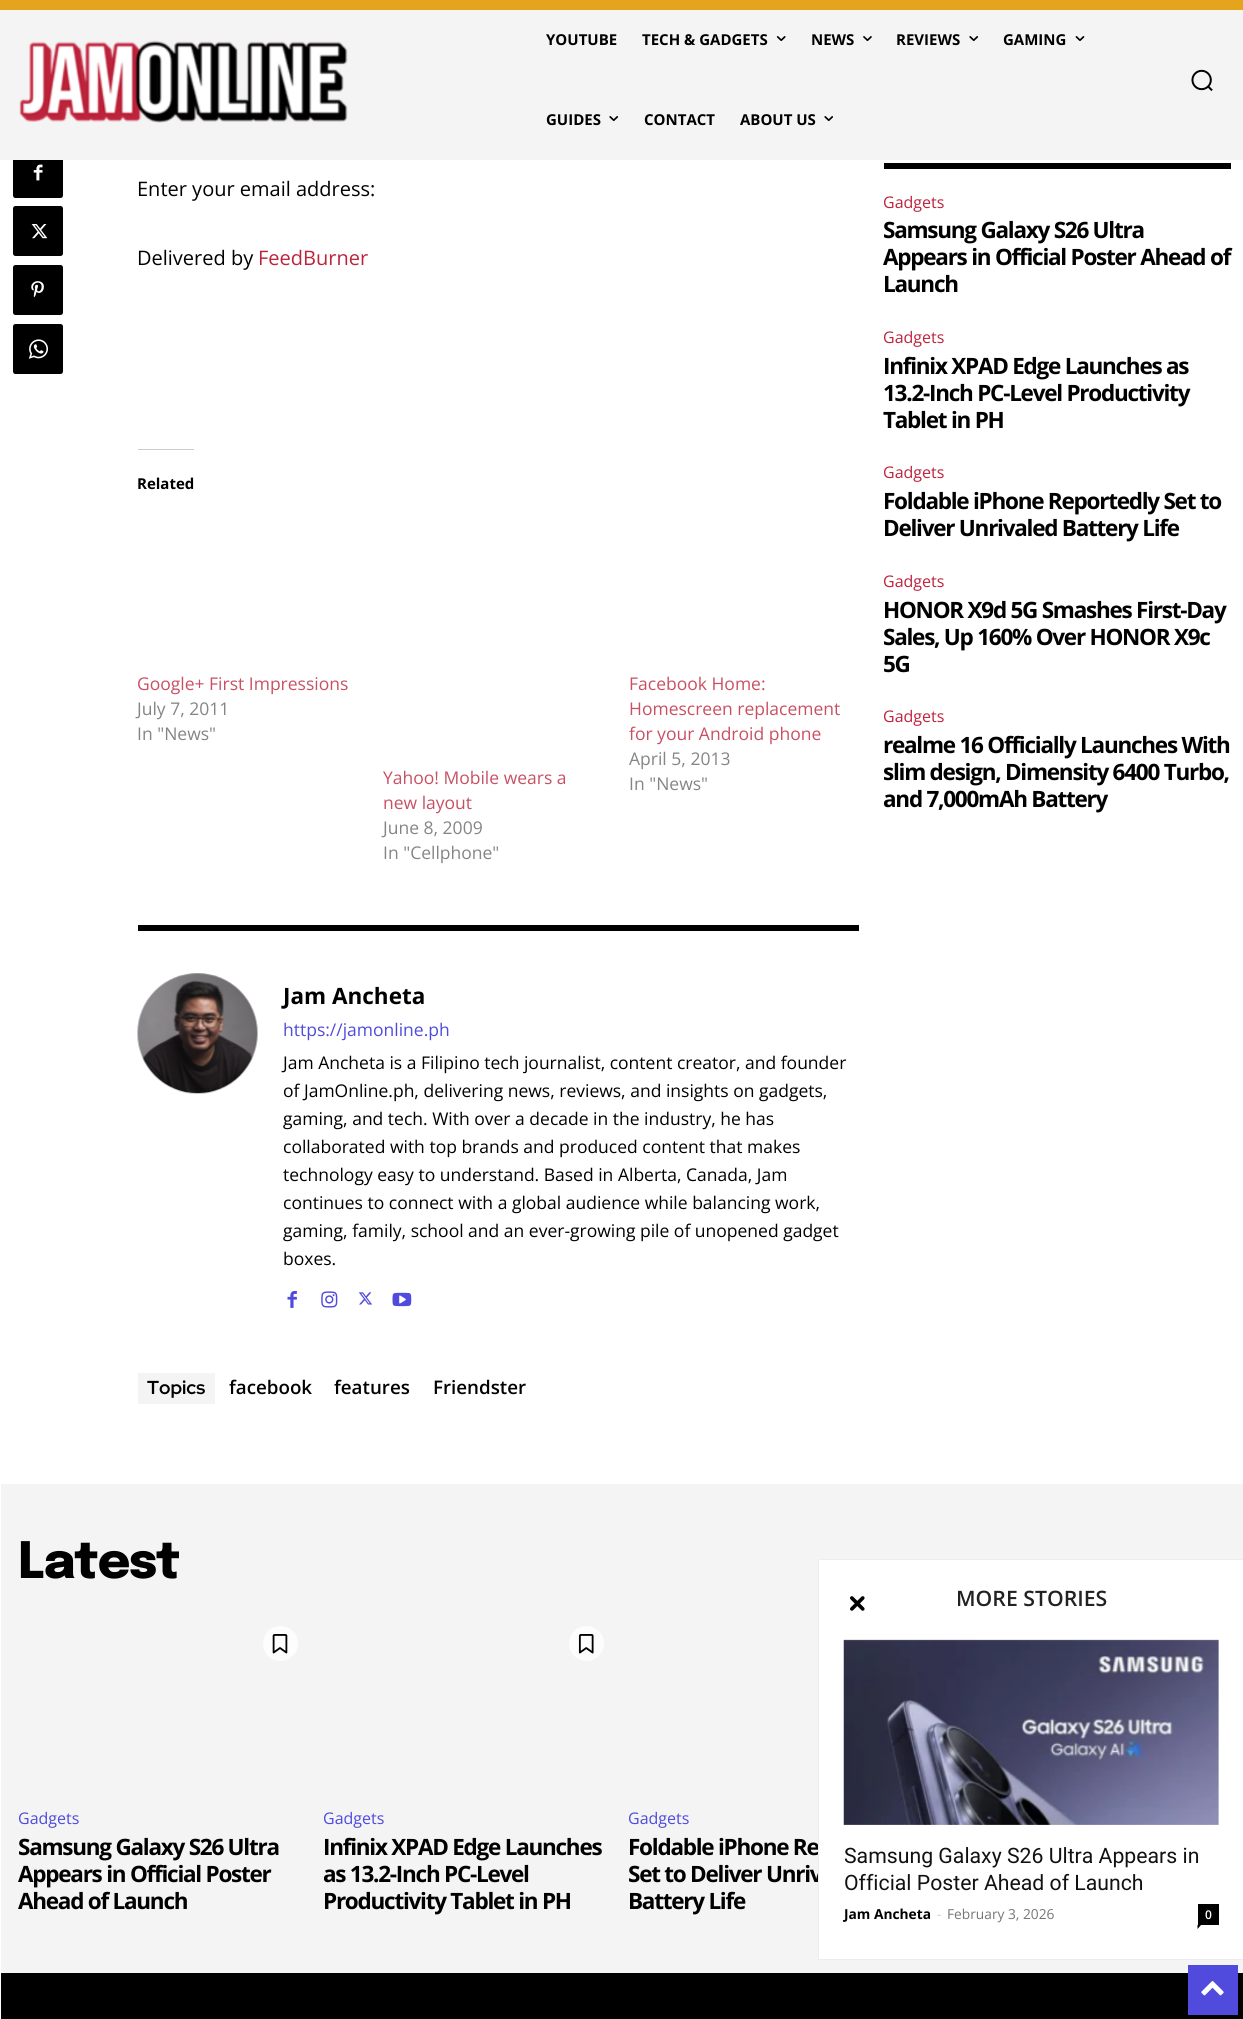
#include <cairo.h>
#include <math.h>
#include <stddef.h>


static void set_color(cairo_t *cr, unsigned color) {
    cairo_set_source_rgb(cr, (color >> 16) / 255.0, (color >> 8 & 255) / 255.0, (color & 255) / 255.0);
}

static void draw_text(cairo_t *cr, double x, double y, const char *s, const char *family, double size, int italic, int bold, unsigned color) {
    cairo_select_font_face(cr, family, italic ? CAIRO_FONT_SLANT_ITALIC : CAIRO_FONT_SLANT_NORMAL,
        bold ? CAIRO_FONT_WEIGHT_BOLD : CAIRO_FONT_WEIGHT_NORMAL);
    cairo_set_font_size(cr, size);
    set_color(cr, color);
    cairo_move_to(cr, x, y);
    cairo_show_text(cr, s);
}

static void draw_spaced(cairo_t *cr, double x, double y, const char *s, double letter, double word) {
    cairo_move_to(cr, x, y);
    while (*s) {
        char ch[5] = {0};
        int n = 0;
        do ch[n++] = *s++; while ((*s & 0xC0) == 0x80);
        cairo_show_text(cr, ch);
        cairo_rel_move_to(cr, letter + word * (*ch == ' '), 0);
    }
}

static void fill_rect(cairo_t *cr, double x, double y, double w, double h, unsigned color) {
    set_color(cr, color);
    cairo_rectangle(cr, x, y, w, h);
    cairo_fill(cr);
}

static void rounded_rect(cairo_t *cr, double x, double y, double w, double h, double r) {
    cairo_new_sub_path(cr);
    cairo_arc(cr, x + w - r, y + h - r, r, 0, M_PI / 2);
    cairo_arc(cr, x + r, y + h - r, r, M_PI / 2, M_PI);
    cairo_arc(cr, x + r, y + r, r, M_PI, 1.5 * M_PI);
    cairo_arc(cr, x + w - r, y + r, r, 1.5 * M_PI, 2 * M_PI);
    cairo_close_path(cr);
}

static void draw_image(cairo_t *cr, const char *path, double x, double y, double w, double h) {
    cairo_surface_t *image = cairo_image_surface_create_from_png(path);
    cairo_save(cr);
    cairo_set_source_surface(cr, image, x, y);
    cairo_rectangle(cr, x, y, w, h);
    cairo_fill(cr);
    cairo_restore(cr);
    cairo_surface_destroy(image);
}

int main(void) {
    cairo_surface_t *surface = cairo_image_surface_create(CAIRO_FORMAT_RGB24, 1243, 2019);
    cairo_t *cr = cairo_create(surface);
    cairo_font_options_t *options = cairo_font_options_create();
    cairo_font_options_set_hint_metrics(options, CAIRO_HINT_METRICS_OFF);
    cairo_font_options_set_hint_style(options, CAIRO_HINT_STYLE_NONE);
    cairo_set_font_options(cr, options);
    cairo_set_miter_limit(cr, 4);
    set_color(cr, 0xFFFFFF);
    cairo_paint(cr);
    fill_rect(cr, 0, 0, 1243, 10, 0xE4A41E);
    set_color(cr, 0x000000);
    rounded_rect(cr, 13, 148, 50, 50, 2.5);
    cairo_fill(cr);
    fill_rect(cr, 0, 10, 1243, 150, 0xF4F4F4);
    draw_image(cr, "assets/img1.png", 19, 40, 329, 83);
    draw_text(cr, 546, 45, "YOUTUBE", "Open Sans", 15, 0, 1, 0x000000);
    draw_text(cr, 642, 45, "TECH & GADGETS", "Open Sans", 15, 0, 1, 0x000000);
    draw_image(cr, "assets/img2.png", 776, 36, 10, 6);
    draw_text(cr, 811, 45, "NEWS", "Open Sans", 15, 0, 1, 0x000000);
    draw_image(cr, "assets/img3.png", 863, 36, 9, 6);
    draw_text(cr, 896, 45, "REVIEWS", "Open Sans", 15, 0, 1, 0x000000);
    draw_image(cr, "assets/img4.png", 969, 36, 9, 6);
    draw_text(cr, 1003, 45, "GAMING", "Open Sans", 15, 0, 1, 0x000000);
    draw_image(cr, "assets/img5.png", 1075, 36, 10, 5);
    draw_text(cr, 546, 125, "GUIDES", "Open Sans", 15, 0, 1, 0x000000);
    draw_image(cr, "assets/img4.png", 609, 116, 9, 6);
    draw_text(cr, 644, 125, "CONTACT", "Open Sans", 15, 0, 1, 0x000000);
    draw_text(cr, 740, 125, "ABOUT US", "Open Sans", 15, 0, 1, 0x000000);
    draw_image(cr, "assets/img4.png", 824, 116, 9, 6);
    draw_image(cr, "assets/img6.png", 1191, 69, 22, 22);
    draw_image(cr, "assets/img7.png", 33, 164, 10, 17);
    rounded_rect(cr, 13, 206, 50, 50, 2.5);
    cairo_fill(cr);
    draw_image(cr, "assets/img8.png", 31, 224, 17, 15);
    rounded_rect(cr, 13, 265, 50, 50, 2.5);
    cairo_fill(cr);
    draw_image(cr, "assets/img9.png", 31, 281, 13, 17);
    rounded_rect(cr, 13, 324, 50, 50, 2.5);
    cairo_fill(cr);
    draw_image(cr, "assets/img10.png", 28, 339, 20, 20);
    draw_text(cr, 137, 196, "Enter your email address:", "Open Sans", 20, 0, 0, 0x000000);
    draw_text(cr, 137, 265, "Delivered by", "Open Sans", 20, 0, 0, 0x000000);
    draw_text(cr, 258, 265, "FeedBurner", "Open Sans", 20, 0, 0, 0xBC243C);
    fill_rect(cr, 138, 449, 56, 1, 0xCCCCCC);
    draw_text(cr, 137, 489, "Related", "Open Sans", 15, 0, 1, 0x000000);
    draw_text(cr, 137, 690, "Google+ First Impressions", "Open Sans", 17.5, 0, 0, 0xC95063);
    draw_text(cr, 137, 715, "July 7, 2011", "Open Sans", 17.5, 0, 0, 0x858585);
    draw_text(cr, 137, 740, "In \"News\"", "Open Sans", 17.5, 0, 0, 0x858585);
    draw_text(cr, 629, 690, "Facebook Home:", "Open Sans", 17.5, 0, 0, 0xC95063);
    draw_text(cr, 629, 715, "Homescreen replacement", "Open Sans", 17.5, 0, 0, 0xC95063);
    draw_text(cr, 629, 740, "for your Android phone", "Open Sans", 17.5, 0, 0, 0xC95063);
    draw_text(cr, 629, 765, "April 5, 2013", "Open Sans", 17.5, 0, 0, 0x858585);
    draw_text(cr, 629, 790, "In \"News\"", "Open Sans", 17.5, 0, 0, 0x858585);
    draw_text(cr, 383, 784, "Yahoo! Mobile wears a", "Open Sans", 17.5, 0, 0, 0xC95063);
    draw_text(cr, 383, 809, "new layout", "Open Sans", 17.5, 0, 0, 0xC95063);
    draw_text(cr, 383, 834, "June 8, 2009", "Open Sans", 17.5, 0, 0, 0x858585);
    draw_text(cr, 383, 859, "In \"Cellphone\"", "Open Sans", 17.5, 0, 0, 0x858585);
    fill_rect(cr, 138, 925, 721, 6, 0x000000);
    draw_image(cr, "assets/img11.png", 137, 973, 121, 121);
    draw_text(cr, 283, 1004, "Jam Ancheta", "Open Sans", 22.5, 0, 1, 0x000000);
    draw_text(cr, 283, 1036, "https://jamonline.ph", "Open Sans", 17.5, 0, 0, 0x504BDC);
    draw_text(cr, 283, 1069, "Jam Ancheta is a Filipino tech journalist, content creator, and founder", "Open Sans", 17.5, 0, 0, 0x000000);
    draw_text(cr, 283, 1097, "of JamOnline.ph, delivering news, reviews, and insights on gadgets,", "Open Sans", 17.5, 0, 0, 0x000000);
    draw_text(cr, 283, 1125, "gaming, and tech. With over a decade in the industry, he has", "Open Sans", 17.5, 0, 0, 0x000000);
    draw_text(cr, 283, 1153, "collaborated with top brands and produced content that makes", "Open Sans", 17.5, 0, 0, 0x000000);
    draw_text(cr, 283, 1181, "technology easy to understand. Based in Alberta, Canada, Jam", "Open Sans", 17.5, 0, 0, 0x000000);
    draw_text(cr, 283, 1209, "continues to connect with a global audience while balancing work,", "Open Sans", 17.5, 0, 0, 0x000000);
    draw_text(cr, 283, 1237, "gaming, family, school and an ever-growing pile of unopened gadget", "Open Sans", 17.5, 0, 0, 0x000000);
    draw_text(cr, 283, 1265, "boxes.", "Open Sans", 17.5, 0, 0, 0x000000);
    draw_image(cr, "assets/img12.png", 287, 1291, 10, 17);
    draw_image(cr, "assets/img13.png", 321, 1291, 17, 17);
    draw_image(cr, "assets/img14.png", 358, 1292, 15, 13);
    draw_image(cr, "assets/img15.png", 392, 1292, 20, 15);
    fill_rect(cr, 138, 1373, 77, 31, 0xF4F4F4);
    draw_text(cr, 147, 1394, "Topics", "Red Hat Display", 18.75, 0, 1, 0x000000);
    draw_text(cr, 229, 1394, "facebook", "Open Sans SemiBold", 18.75, 0, 0, 0x000000);
    draw_text(cr, 334, 1394, "features", "Open Sans SemiBold", 18.75, 0, 0, 0x000000);
    draw_text(cr, 433, 1394, "Friendster", "Open Sans SemiBold", 18.75, 0, 0, 0x000000);
    fill_rect(cr, 884, 163, 347, 6, 0x000000);
    draw_text(cr, 883, 208, "Gadgets", "Open Sans", 16, 0, 0, 0xBC243C);
    cairo_select_font_face(cr, "Open Sans", CAIRO_FONT_SLANT_NORMAL, CAIRO_FONT_WEIGHT_BOLD);
    cairo_set_font_size(cr, 22.5);
    set_color(cr, 0x000000);
    draw_spaced(cr, 883, 238, "Samsung Galaxy S26 Ultra", -1.25, 0);
    draw_spaced(cr, 883, 265, "Appears in Official Poster Ahead of", -1.25, 0);
    draw_spaced(cr, 883, 292, "Launch", -1.25, 0);
    draw_text(cr, 883, 343, "Gadgets", "Open Sans", 16, 0, 0, 0xBC243C);
    cairo_select_font_face(cr, "Open Sans", CAIRO_FONT_SLANT_NORMAL, CAIRO_FONT_WEIGHT_BOLD);
    cairo_set_font_size(cr, 22.5);
    set_color(cr, 0x000000);
    draw_spaced(cr, 883, 374, "Infinix XPAD Edge Launches as", -1.25, 0);
    draw_spaced(cr, 883, 401, "13.2-Inch PC-Level Productivity", -1.25, 0);
    draw_spaced(cr, 883, 428, "Tablet in PH", -1.25, 0);
    draw_text(cr, 883, 478, "Gadgets", "Open Sans", 16, 0, 0, 0xBC243C);
    cairo_select_font_face(cr, "Open Sans", CAIRO_FONT_SLANT_NORMAL, CAIRO_FONT_WEIGHT_BOLD);
    cairo_set_font_size(cr, 22.5);
    set_color(cr, 0x000000);
    draw_spaced(cr, 883, 509, "Foldable iPhone Reportedly Set to", -1.25, 0);
    draw_spaced(cr, 883, 536, "Deliver Unrivaled Battery Life", -1.25, 0);
    draw_text(cr, 883, 587, "Gadgets", "Open Sans", 16, 0, 0, 0xBC243C);
    cairo_select_font_face(cr, "Open Sans", CAIRO_FONT_SLANT_NORMAL, CAIRO_FONT_WEIGHT_BOLD);
    cairo_set_font_size(cr, 22.5);
    set_color(cr, 0x000000);
    draw_spaced(cr, 883, 618, "HONOR X9d 5G Smashes First-Day", -1.25, 0);
    draw_spaced(cr, 883, 645, "Sales, Up 160% Over HONOR X9c", -1.25, 0);
    draw_spaced(cr, 883, 672, "5G", -1.25, 0);
    draw_text(cr, 883, 722, "Gadgets", "Open Sans", 16, 0, 0, 0xBC243C);
    cairo_select_font_face(cr, "Open Sans", CAIRO_FONT_SLANT_NORMAL, CAIRO_FONT_WEIGHT_BOLD);
    cairo_set_font_size(cr, 22.5);
    set_color(cr, 0x000000);
    draw_spaced(cr, 883, 753, "realme 16 Officially Launches With", -1.25, 0);
    draw_spaced(cr, 883, 780, "slim design, Dimensity 6400 Turbo,", -1.25, 0);
    draw_spaced(cr, 883, 807, "and 7,000mAh Battery", -1.25, 0);
    fill_rect(cr, 1, 1484, 1242, 489, 0xF4F4F4);
    cairo_select_font_face(cr, "Epilogue ExtraBold", CAIRO_FONT_SLANT_NORMAL, CAIRO_FONT_WEIGHT_NORMAL);
    cairo_set_font_size(cr, 50);
    set_color(cr, 0x000000);
    draw_spaced(cr, 18, 1578, "Latest", -1.25, 0);
    set_color(cr, 0xFDFDFD);
    cairo_new_path(cr);
    cairo_arc(cr, 280.5, 1643.5, 17.5, 0, 2 * M_PI);
    cairo_fill(cr);
    draw_image(cr, "assets/img16.png", 272, 1634, 16, 20);
    draw_text(cr, 18, 1824, "Gadgets", "Open Sans", 16, 0, 0, 0x504BDC);
    cairo_select_font_face(cr, "Open Sans", CAIRO_FONT_SLANT_NORMAL, CAIRO_FONT_WEIGHT_BOLD);
    cairo_set_font_size(cr, 22.5);
    set_color(cr, 0x000000);
    draw_spaced(cr, 18, 1855, "Samsung Galaxy S26 Ultra", -1.25, 0);
    draw_spaced(cr, 18, 1882, "Appears in Official Poster", -1.25, 0);
    draw_spaced(cr, 18, 1909, "Ahead of Launch", -1.25, 0);
    set_color(cr, 0xFDFDFD);
    cairo_new_path(cr);
    cairo_arc(cr, 586.5, 1643.5, 17.5, 0, 2 * M_PI);
    cairo_fill(cr);
    draw_image(cr, "assets/img17.png", 578, 1634, 16, 20);
    draw_text(cr, 323, 1824, "Gadgets", "Open Sans", 16, 0, 0, 0x504BDC);
    cairo_select_font_face(cr, "Open Sans", CAIRO_FONT_SLANT_NORMAL, CAIRO_FONT_WEIGHT_BOLD);
    cairo_set_font_size(cr, 22.5);
    set_color(cr, 0x000000);
    draw_spaced(cr, 323, 1855, "Infinix XPAD Edge Launches", -1.25, 0);
    draw_spaced(cr, 323, 1882, "as 13.2-Inch PC-Level", -1.25, 0);
    draw_spaced(cr, 323, 1909, "Productivity Tablet in PH", -1.25, 0);
    draw_text(cr, 628, 1824, "Gadgets", "Open Sans", 16, 0, 0, 0x504BDC);
    cairo_select_font_face(cr, "Open Sans", CAIRO_FONT_SLANT_NORMAL, CAIRO_FONT_WEIGHT_BOLD);
    cairo_set_font_size(cr, 22.5);
    set_color(cr, 0x000000);
    draw_spaced(cr, 628, 1855, "Foldable iPhone Re", -1.25, 0);
    draw_spaced(cr, 628, 1882, "Set to Deliver Unriv", -1.25, 0);
    draw_spaced(cr, 628, 1909, "Battery Life", -1.25, 0);
    fill_rect(cr, 1, 1973, 1242, 46, 0x000000);
    fill_rect(cr, 819, 1560, 424, 399, 0xFFFFFF);
    fill_rect(cr, 818, 1559, 425, 1, 0xEDEDED);
    fill_rect(cr, 818, 1959, 425, 1, 0xEDEDED);
    fill_rect(cr, 818, 1559, 1, 401, 0xEDEDED);
    draw_image(cr, "assets/img18.png", 850, 1596, 15, 15);
    draw_text(cr, 956, 1606, "MORE STORIES", "Open Sans SemiBold", 21.25, 0, 0, 0x222222);
    draw_image(cr, "assets/img19.png", 843, 1639, 376, 186);
    draw_text(cr, 844, 1863, "Samsung Galaxy S26 Ultra Appears in", "Roboto", 21.25, 0, 0, 0x111111);
    draw_text(cr, 844, 1890, "Official Poster Ahead of Launch", "Roboto", 21.25, 0, 0, 0x111111);
    draw_text(cr, 844, 1919, "Jam Ancheta", "Open Sans", 13.75, 0, 1, 0x000000);
    draw_text(cr, 937, 1919, "-", "Open Sans", 13.75, 0, 0, 0xCCCCCC);
    draw_text(cr, 947, 1919, "February 3, 2026", "Open Sans", 13.75, 0, 0, 0x767676);
    fill_rect(cr, 1198, 1904, 21, 21, 0x000000);
    draw_text(cr, 1205, 1919, "0", "Open Sans SemiBold", 12, 0, 0, 0xFFFFFF);
    set_color(cr, 0x000000);
    cairo_new_path(cr);
    cairo_move_to(cr, 1197.5, 1925);
    cairo_line_to(cr, 1201, 1925);
    cairo_line_to(cr, 1197.5, 1929);
    cairo_close_path(cr);
    cairo_fill(cr);
    fill_rect(cr, 1188, 1965, 50, 50, 0x504BDC);
    draw_image(cr, "assets/img20.png", 1201, 1981, 23, 15);
    cairo_surface_write_to_png(surface, "output.png");
    cairo_font_options_destroy(options);
    cairo_destroy(cr);
    cairo_surface_destroy(surface);
    return 0;
}
